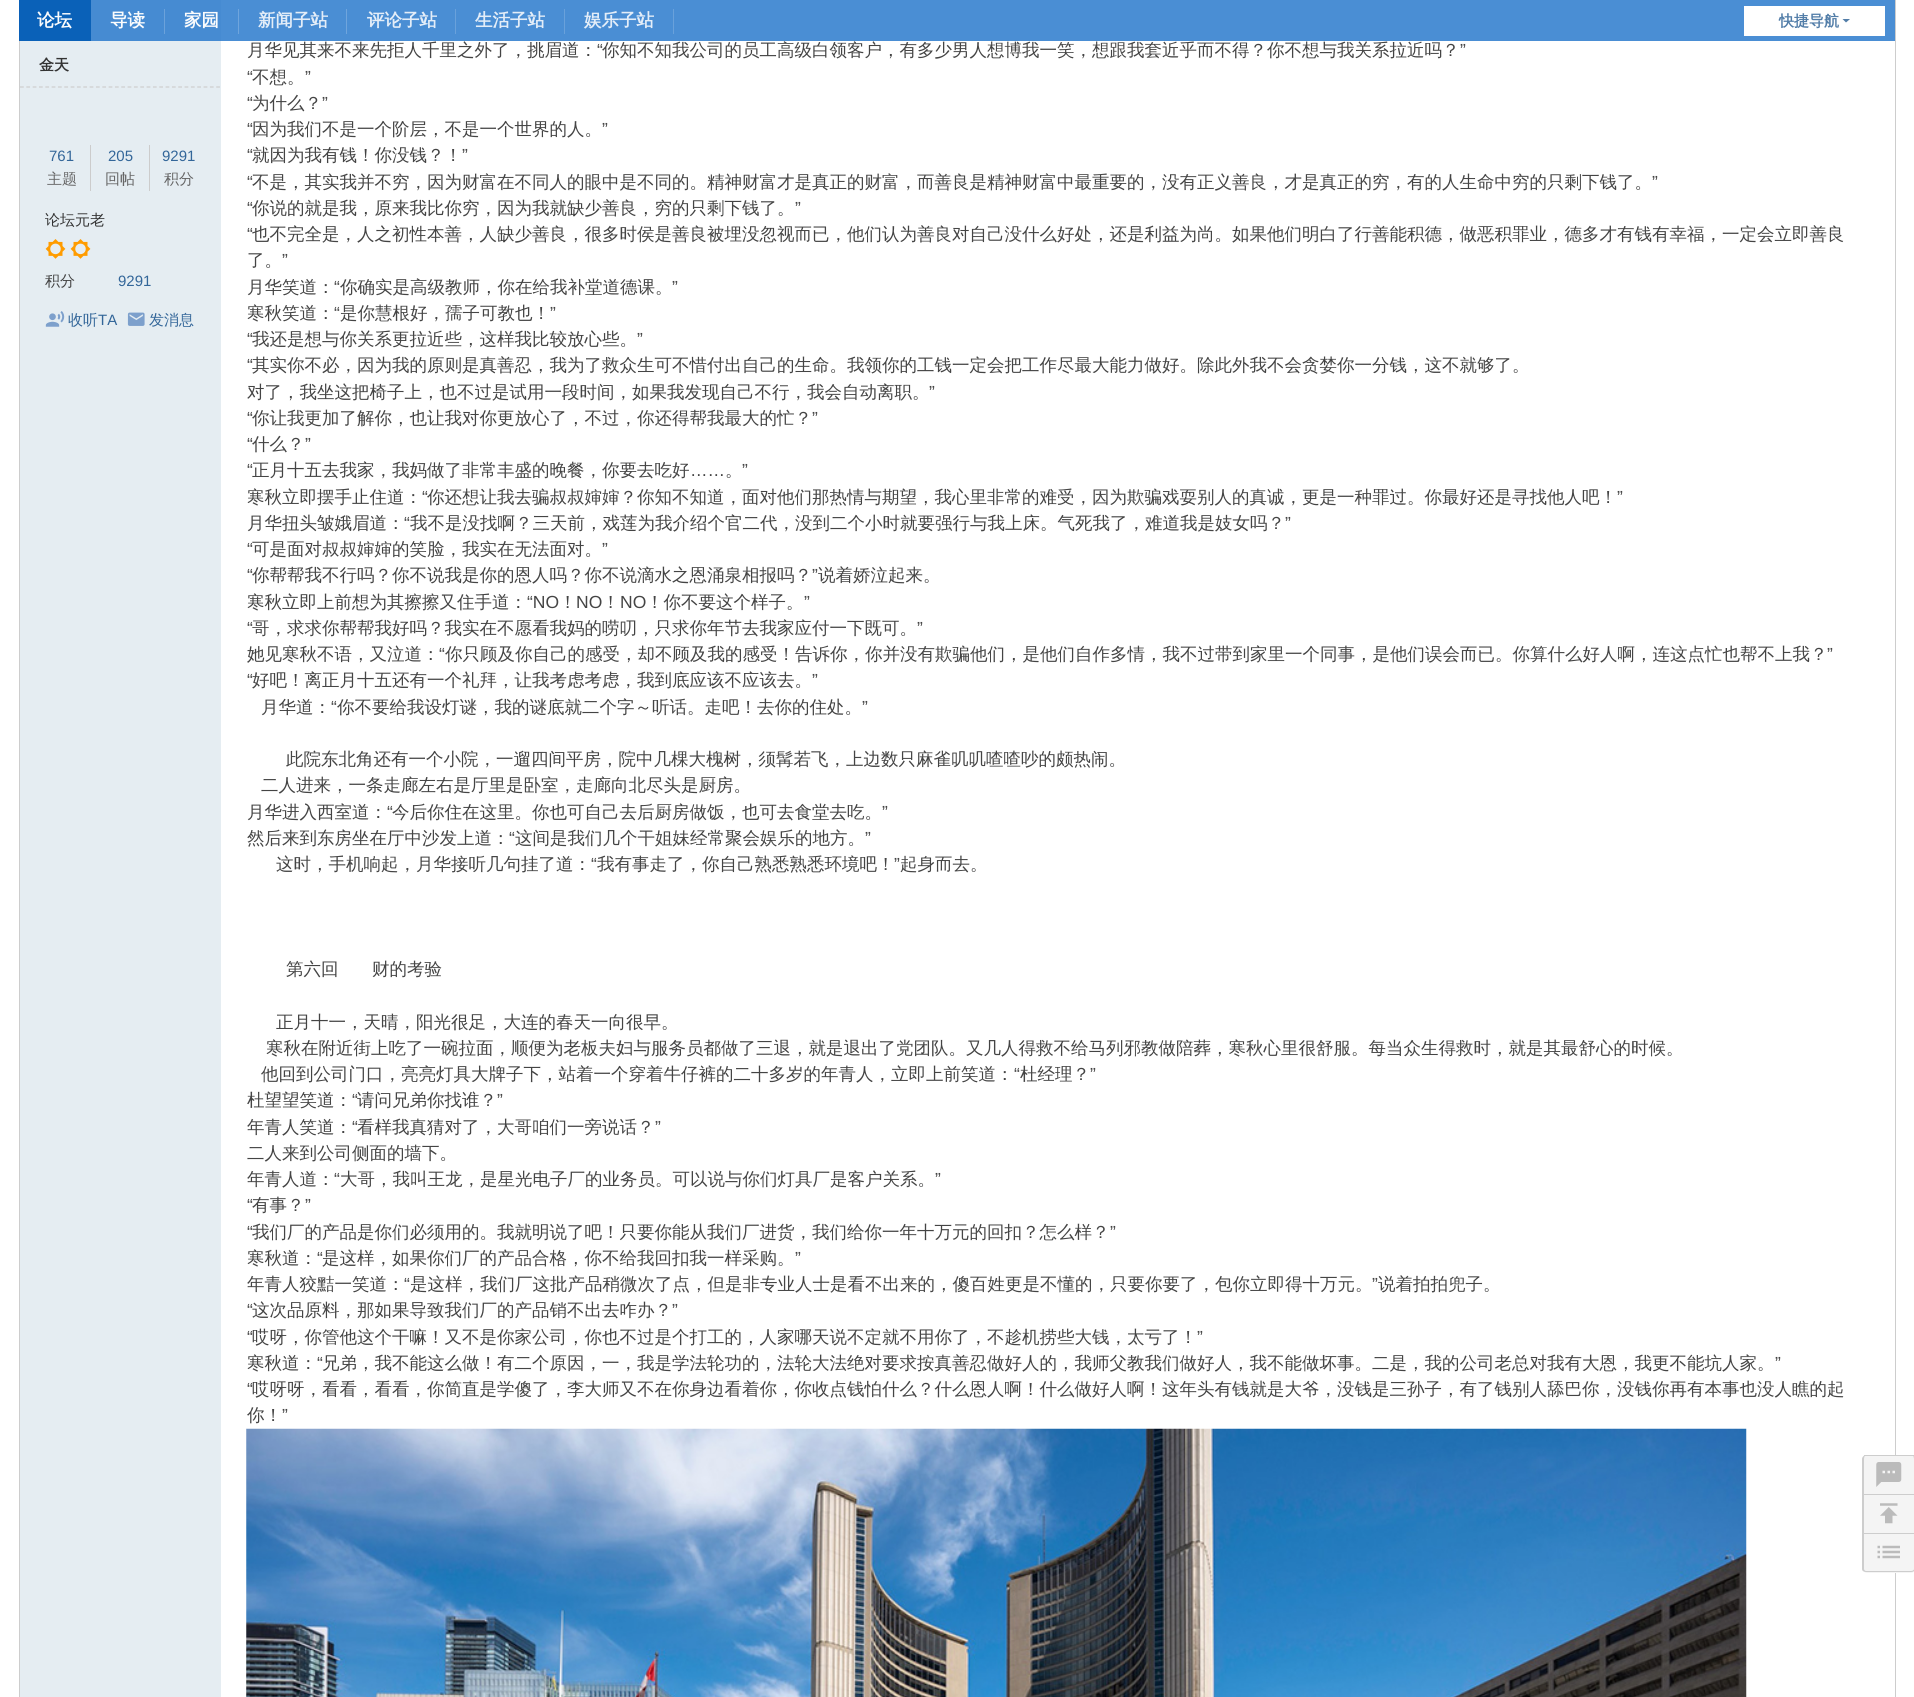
#include <cairo.h>
#include <math.h>
#include <stddef.h>


static void set_color(cairo_t *cr, unsigned color) {
    cairo_set_source_rgb(cr, (color >> 16) / 255.0, (color >> 8 & 255) / 255.0, (color & 255) / 255.0);
}

static void draw_text(cairo_t *cr, double x, double y, const char *s, const char *family, double size, int italic, int bold, unsigned color) {
    cairo_select_font_face(cr, family, italic ? CAIRO_FONT_SLANT_ITALIC : CAIRO_FONT_SLANT_NORMAL,
        bold ? CAIRO_FONT_WEIGHT_BOLD : CAIRO_FONT_WEIGHT_NORMAL);
    cairo_set_font_size(cr, size);
    set_color(cr, color);
    cairo_move_to(cr, x, y);
    cairo_show_text(cr, s);
}

static void fill_rect(cairo_t *cr, double x, double y, double w, double h, unsigned color) {
    set_color(cr, color);
    cairo_rectangle(cr, x, y, w, h);
    cairo_fill(cr);
}

static void rounded_rect(cairo_t *cr, double x, double y, double w, double h, double r) {
    cairo_new_sub_path(cr);
    cairo_arc(cr, x + w - r, y + h - r, r, 0, M_PI / 2);
    cairo_arc(cr, x + r, y + h - r, r, M_PI / 2, M_PI);
    cairo_arc(cr, x + r, y + r, r, M_PI, 1.5 * M_PI);
    cairo_arc(cr, x + w - r, y + r, r, 1.5 * M_PI, 2 * M_PI);
    cairo_close_path(cr);
}

static void draw_image(cairo_t *cr, const char *path, double x, double y, double w, double h) {
    cairo_surface_t *image = cairo_image_surface_create_from_png(path);
    cairo_save(cr);
    cairo_set_source_surface(cr, image, x, y);
    cairo_rectangle(cr, x, y, w, h);
    cairo_fill(cr);
    cairo_restore(cr);
    cairo_surface_destroy(image);
}

int main(void) {
    cairo_surface_t *surface = cairo_image_surface_create(CAIRO_FORMAT_RGB24, 1914, 1697);
    cairo_t *cr = cairo_create(surface);
    cairo_font_options_t *options = cairo_font_options_create();
    cairo_font_options_set_hint_metrics(options, CAIRO_HINT_METRICS_OFF);
    cairo_font_options_set_hint_style(options, CAIRO_HINT_STYLE_NONE);
    cairo_set_font_options(cr, options);
    cairo_set_miter_limit(cr, 4);
    set_color(cr, 0xFFFFFF);
    cairo_paint(cr);
    cairo_rectangle(cr, 19.5, -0.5, 1876, 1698);
    set_color(cr, 0xCDCDCD);
    cairo_set_line_width(cr, 1);
    cairo_stroke(cr);
    fill_rect(cr, 20, 0, 201, 1697, 0xE5EDF2);
    cairo_set_source_rgba(cr, 0.169, 0.478, 0.804, 0.85);
    cairo_rectangle(cr, 19, 0, 1876, 41);
    cairo_fill(cr);
    cairo_set_source_rgba(cr, 0, 0.353, 0.706, 0.85);
    cairo_rectangle(cr, 19, 0, 72, 41);
    cairo_fill(cr);
    draw_text(cr, 37, 26, "论坛", "WenQuanYi Zen Hei", 17.5, 0, 1, 0xFBFCFD);
    fill_rect(cr, 164, 9, 1, 25, 0x6BA2DB);
    draw_text(cr, 110, 26, "导读", "WenQuanYi Zen Hei", 17.5, 0, 1, 0xFBFCFD);
    fill_rect(cr, 238, 9, 1, 25, 0x6FA5DD);
    draw_text(cr, 184, 26, "家园", "WenQuanYi Zen Hei", 17.5, 0, 1, 0xFBFCFD);
    fill_rect(cr, 346, 9, 1, 25, 0x6FA5DD);
    draw_text(cr, 258, 26, "新闻子站", "WenQuanYi Zen Hei", 17.5, 0, 1, 0xE3EDF8);
    cairo_set_source_rgba(cr, 1, 1, 1, 0.17);
    cairo_rectangle(cr, 455, 9, 1, 25);
    cairo_fill(cr);
    draw_text(cr, 367, 26, "评论子站", "WenQuanYi Zen Hei", 17.5, 0, 1, 0xE3EDF8);
    cairo_set_source_rgba(cr, 1, 1, 1, 0.17);
    cairo_rectangle(cr, 564, 9, 1, 25);
    cairo_fill(cr);
    draw_text(cr, 475, 26, "生活子站", "WenQuanYi Zen Hei", 17.5, 0, 1, 0xE3EDF8);
    cairo_set_source_rgba(cr, 1, 1, 1, 0.17);
    cairo_rectangle(cr, 673, 9, 1, 25);
    cairo_fill(cr);
    draw_text(cr, 584, 26, "娱乐子站", "WenQuanYi Zen Hei", 17.5, 0, 1, 0xE3EDF8);
    fill_rect(cr, 1744, 6, 141, 30, 0xFFFFFF);
    draw_text(cr, 1779, 26, "快捷导航", "WenQuanYi Zen Hei", 15, 0, 1, 0x527DA8);
    cairo_new_path(cr);
    cairo_move_to(cr, 1842.5, 19);
    cairo_line_to(cr, 1850, 19);
    cairo_line_to(cr, 1846, 22.5);
    cairo_close_path(cr);
    cairo_fill(cr);
    cairo_new_path(cr);
    cairo_move_to(cr, 20, 87);
    cairo_line_to(cr, 220, 87);
    set_color(cr, 0xCDCDCD);
    cairo_set_line_width(cr, 1.2);
    cairo_set_dash(cr, (double[]){3.75, 2.58}, 2, 0);
    cairo_stroke(cr);
    draw_text(cr, 39, 70, "金天", "WenQuanYi Zen Hei", 15, 0, 1, 0x333333);
    fill_rect(cr, 90, 145, 1, 46, 0xCCCCCC);
    draw_text(cr, 49, 161, "761", "Liberation Sans", 15, 0, 0, 0x336699);
    draw_text(cr, 47, 184, "主题", "WenQuanYi Zen Hei Medium", 15, 0, 0, 0x666666);
    fill_rect(cr, 149, 145, 1, 46, 0xCCCCCC);
    draw_text(cr, 108, 161, "205", "Liberation Sans", 15, 0, 0, 0x336699);
    draw_text(cr, 105, 184, "回帖", "WenQuanYi Zen Hei Medium", 15, 0, 0, 0x666666);
    draw_text(cr, 162, 161, "9291", "Liberation Sans", 15, 0, 0, 0x336699);
    draw_text(cr, 164, 184, "积分", "WenQuanYi Zen Hei Medium", 15, 0, 0, 0x666666);
    draw_text(cr, 45, 225, "论坛元老", "WenQuanYi Zen Hei Medium", 15, 0, 0, 0x333333);
    draw_image(cr, "assets/img1.png", 45, 239, 21, 20);
    draw_image(cr, "assets/img1.png", 70, 239, 21, 20);
    draw_text(cr, 45, 286, "积分", "WenQuanYi Zen Hei Medium", 15, 0, 0, 0x444444);
    draw_text(cr, 118, 286, "9291", "Liberation Sans", 15, 0, 0, 0x336699);
    draw_image(cr, "assets/img2.png", 45, 311, 20, 16);
    draw_text(cr, 68, 325, "收听", "WenQuanYi Zen Hei Medium", 15, 0, 0, 0x336699);
    draw_text(cr, 98, 325, "TA", "Liberation Sans", 15, 0, 0, 0x336699);
    draw_image(cr, "assets/img3.png", 127, 312, 18, 14);
    draw_text(cr, 149, 325, "发消息", "WenQuanYi Zen Hei Medium", 15, 0, 0, 0x336699);
    draw_text(cr, 247, 56, "月华见其来不来先拒人千里之外了，挑眉道：", "WenQuanYi Zen Hei Medium", 17.5, 0, 0, 0x444444);
    draw_text(cr, 597, 56, "“", "Liberation Sans", 17.5, 0, 0, 0x444444);
    draw_text(cr, 602, 56, "你知不知我公司的员工高级白领客户，有多少男人想博我一笑，想跟我套近乎而不得？你不想与我关系拉近吗？", "WenQuanYi Zen Hei Medium", 17.5, 0, 0, 0x444444);
    draw_text(cr, 1460, 56, "”", "Liberation Sans", 17.5, 0, 0, 0x444444);
    draw_text(cr, 247, 83, "“", "Liberation Sans", 17.5, 0, 0, 0x444444);
    draw_text(cr, 252, 83, "不想。", "WenQuanYi Zen Hei Medium", 17.5, 0, 0, 0x444444);
    draw_text(cr, 305, 83, "”", "Liberation Sans", 17.5, 0, 0, 0x444444);
    draw_text(cr, 247, 109, "“", "Liberation Sans", 17.5, 0, 0, 0x444444);
    draw_text(cr, 252, 109, "为什么？", "WenQuanYi Zen Hei Medium", 17.5, 0, 0, 0x444444);
    draw_text(cr, 322, 109, "”", "Liberation Sans", 17.5, 0, 0, 0x444444);
    draw_text(cr, 247, 135, "“", "Liberation Sans", 17.5, 0, 0, 0x444444);
    draw_text(cr, 252, 135, "因为我们不是一个阶层，不是一个世界的人。", "WenQuanYi Zen Hei Medium", 17.5, 0, 0, 0x444444);
    draw_text(cr, 602, 135, "”", "Liberation Sans", 17.5, 0, 0, 0x444444);
    draw_text(cr, 247, 161, "“", "Liberation Sans", 17.5, 0, 0, 0x444444);
    draw_text(cr, 252, 161, "就因为我有钱！你没钱？！", "WenQuanYi Zen Hei Medium", 17.5, 0, 0, 0x444444);
    draw_text(cr, 462, 161, "”", "Liberation Sans", 17.5, 0, 0, 0x444444);
    draw_text(cr, 247, 188, "“", "Liberation Sans", 17.5, 0, 0, 0x444444);
    draw_text(cr, 252, 188, "不是，其实我并不穷，因为财富在不同人的眼中是不同的。精神财富才是真正的财富，而善良是精神财富中最重要的，没有正义善良，才是真正的穷，有的人生命中穷的只剩下钱了。", "WenQuanYi Zen Hei Medium", 17.5, 0, 0, 0x444444);
    draw_text(cr, 1652, 188, "”", "Liberation Sans", 17.5, 0, 0, 0x444444);
    draw_text(cr, 247, 214, "“", "Liberation Sans", 17.5, 0, 0, 0x444444);
    draw_text(cr, 252, 214, "你说的就是我，原来我比你穷，因为我就缺少善良，穷的只剩下钱了。", "WenQuanYi Zen Hei Medium", 17.5, 0, 0, 0x444444);
    draw_text(cr, 795, 214, "”", "Liberation Sans", 17.5, 0, 0, 0x444444);
    draw_text(cr, 247, 240, "“", "Liberation Sans", 17.5, 0, 0, 0x444444);
    draw_text(cr, 252, 240, "也不完全是，人之初性本善，人缺少善良，很多时侯是善良被埋没忽视而已，他们认为善良对自己没什么好处，还是利益为尚。如果他们明白了行善能积德，做恶积罪业，德多才有钱有幸福，一定会立即善良", "WenQuanYi Zen Hei Medium", 17.5, 0, 0, 0x444444);
    draw_text(cr, 247, 266, "了。", "WenQuanYi Zen Hei Medium", 17.5, 0, 0, 0x444444);
    draw_text(cr, 282, 266, "”", "Liberation Sans", 17.5, 0, 0, 0x444444);
    draw_text(cr, 247, 293, "月华笑道：", "WenQuanYi Zen Hei Medium", 17.5, 0, 0, 0x444444);
    draw_text(cr, 334, 293, "“", "Liberation Sans", 17.5, 0, 0, 0x444444);
    draw_text(cr, 340, 293, "你确实是高级教师，你在给我补堂道德课。", "WenQuanYi Zen Hei Medium", 17.5, 0, 0, 0x444444);
    draw_text(cr, 672, 293, "”", "Liberation Sans", 17.5, 0, 0, 0x444444);
    draw_text(cr, 247, 319, "寒秋笑道：", "WenQuanYi Zen Hei Medium", 17.5, 0, 0, 0x444444);
    draw_text(cr, 334, 319, "“", "Liberation Sans", 17.5, 0, 0, 0x444444);
    draw_text(cr, 340, 319, "是你慧根好，孺子可教也！", "WenQuanYi Zen Hei Medium", 17.5, 0, 0, 0x444444);
    draw_text(cr, 550, 319, "”", "Liberation Sans", 17.5, 0, 0, 0x444444);
    draw_text(cr, 247, 345, "“", "Liberation Sans", 17.5, 0, 0, 0x444444);
    draw_text(cr, 252, 345, "我还是想与你关系更拉近些，这样我比较放心些。", "WenQuanYi Zen Hei Medium", 17.5, 0, 0, 0x444444);
    draw_text(cr, 637, 345, "”", "Liberation Sans", 17.5, 0, 0, 0x444444);
    draw_text(cr, 247, 371, "“", "Liberation Sans", 17.5, 0, 0, 0x444444);
    draw_text(cr, 252, 371, "其实你不必，因为我的原则是真善忍，我为了救众生可不惜付出自己的生命。我领你的工钱一定会把工作尽最大能力做好。除此外我不会贪婪你一分钱，这不就够了。", "WenQuanYi Zen Hei Medium", 17.5, 0, 0, 0x444444);
    draw_text(cr, 247, 398, "对了，我坐这把椅子上，也不过是试用一段时间，如果我发现自己不行，我会自动离职。", "WenQuanYi Zen Hei Medium", 17.5, 0, 0, 0x444444);
    draw_text(cr, 929, 398, "”", "Liberation Sans", 17.5, 0, 0, 0x444444);
    draw_text(cr, 247, 424, "“", "Liberation Sans", 17.5, 0, 0, 0x444444);
    draw_text(cr, 252, 424, "你让我更加了解你，也让我对你更放心了，不过，你还得帮我最大的忙？", "WenQuanYi Zen Hei Medium", 17.5, 0, 0, 0x444444);
    draw_text(cr, 812, 424, "”", "Liberation Sans", 17.5, 0, 0, 0x444444);
    draw_text(cr, 247, 450, "“", "Liberation Sans", 17.5, 0, 0, 0x444444);
    draw_text(cr, 252, 450, "什么？", "WenQuanYi Zen Hei Medium", 17.5, 0, 0, 0x444444);
    draw_text(cr, 305, 450, "”", "Liberation Sans", 17.5, 0, 0, 0x444444);
    draw_text(cr, 247, 476, "“", "Liberation Sans", 17.5, 0, 0, 0x444444);
    draw_text(cr, 252, 476, "正月十五去我家，我妈做了非常丰盛的晚餐，你要去吃好", "WenQuanYi Zen Hei Medium", 17.5, 0, 0, 0x444444);
    draw_text(cr, 742, 476, "”", "Liberation Sans", 17.5, 0, 0, 0x444444);
    draw_text(cr, 690, 476, "……", "Liberation Sans", 17.5, 0, 0, 0x444444);
    draw_text(cr, 725, 476, "。", "WenQuanYi Zen Hei Medium", 17.5, 0, 0, 0x444444);
    draw_text(cr, 247, 503, "寒秋立即摆手止住道：", "WenQuanYi Zen Hei Medium", 17.5, 0, 0, 0x444444);
    draw_text(cr, 422, 503, "“", "Liberation Sans", 17.5, 0, 0, 0x444444);
    draw_text(cr, 427, 503, "你还想让我去骗叔叔婶婶？你知不知道，面对他们那热情与期望，我心里非常的难受，因为欺骗戏耍别人的真诚，更是一种罪过。你最好还是寻找他人吧！", "WenQuanYi Zen Hei Medium", 17.5, 0, 0, 0x444444);
    draw_text(cr, 1617, 503, "”", "Liberation Sans", 17.5, 0, 0, 0x444444);
    draw_text(cr, 247, 529, "月华扭头皱娥眉道：", "WenQuanYi Zen Hei Medium", 17.5, 0, 0, 0x444444);
    draw_text(cr, 404, 529, "“", "Liberation Sans", 17.5, 0, 0, 0x444444);
    draw_text(cr, 410, 529, "我不是没找啊？三天前，戏莲为我介绍个官二代，没到二个小时就要强行与我上床。气死我了，难道我是妓女吗？", "WenQuanYi Zen Hei Medium", 17.5, 0, 0, 0x444444);
    draw_text(cr, 1285, 529, "”", "Liberation Sans", 17.5, 0, 0, 0x444444);
    draw_text(cr, 247, 555, "“", "Liberation Sans", 17.5, 0, 0, 0x444444);
    draw_text(cr, 252, 555, "可是面对叔叔婶婶的笑脸，我实在无法面对。", "WenQuanYi Zen Hei Medium", 17.5, 0, 0, 0x444444);
    draw_text(cr, 602, 555, "”", "Liberation Sans", 17.5, 0, 0, 0x444444);
    draw_text(cr, 247, 581, "“", "Liberation Sans", 17.5, 0, 0, 0x444444);
    draw_text(cr, 252, 581, "你帮帮我不行吗？你不说我是你的恩人吗？你不说滴水之恩涌泉相报吗？", "WenQuanYi Zen Hei Medium", 17.5, 0, 0, 0x444444);
    draw_text(cr, 812, 581, "”", "Liberation Sans", 17.5, 0, 0, 0x444444);
    draw_text(cr, 818, 581, "说着娇泣起来。", "WenQuanYi Zen Hei Medium", 17.5, 0, 0, 0x444444);
    draw_text(cr, 247, 608, "寒秋立即上前想为其擦擦又住手道：", "WenQuanYi Zen Hei Medium", 17.5, 0, 0, 0x444444);
    draw_text(cr, 527, 608, "“NO", "Liberation Sans", 17.5, 0, 0, 0x444444);
    draw_text(cr, 559, 608, "！", "WenQuanYi Zen Hei Medium", 17.5, 0, 0, 0x444444);
    draw_text(cr, 576, 608, "NO", "Liberation Sans", 17.5, 0, 0, 0x444444);
    draw_text(cr, 602, 608, "！", "WenQuanYi Zen Hei Medium", 17.5, 0, 0, 0x444444);
    draw_text(cr, 620, 608, "NO", "Liberation Sans", 17.5, 0, 0, 0x444444);
    draw_text(cr, 646, 608, "！你不要这个样子。", "WenQuanYi Zen Hei Medium", 17.5, 0, 0, 0x444444);
    draw_text(cr, 804, 608, "”", "Liberation Sans", 17.5, 0, 0, 0x444444);
    draw_text(cr, 247, 634, "“", "Liberation Sans", 17.5, 0, 0, 0x444444);
    draw_text(cr, 252, 634, "哥，求求你帮帮我好吗？我实在不愿看我妈的唠叨，只求你年节去我家应付一下既可。", "WenQuanYi Zen Hei Medium", 17.5, 0, 0, 0x444444);
    draw_text(cr, 917, 634, "”", "Liberation Sans", 17.5, 0, 0, 0x444444);
    draw_text(cr, 247, 660, "她见寒秋不语，又泣道：", "WenQuanYi Zen Hei Medium", 17.5, 0, 0, 0x444444);
    draw_text(cr, 439, 660, "“", "Liberation Sans", 17.5, 0, 0, 0x444444);
    draw_text(cr, 445, 660, "你只顾及你自己的感受，却不顾及我的感受！告诉你，你并没有欺骗他们，是他们自作多情，我不过带到家里一个同事，是他们误会而已。你算什么好人啊，连这点忙也帮不上我？", "WenQuanYi Zen Hei Medium", 17.5, 0, 0, 0x444444);
    draw_text(cr, 1827, 660, "”", "Liberation Sans", 17.5, 0, 0, 0x444444);
    draw_text(cr, 247, 686, "“", "Liberation Sans", 17.5, 0, 0, 0x444444);
    draw_text(cr, 252, 686, "好吧！离正月十五还有一个礼拜，让我考虑考虑，我到底应该不应该去。", "WenQuanYi Zen Hei Medium", 17.5, 0, 0, 0x444444);
    draw_text(cr, 812, 686, "”", "Liberation Sans", 17.5, 0, 0, 0x444444);
    draw_text(cr, 261, 713, "月华道：", "WenQuanYi Zen Hei Medium", 17.5, 0, 0, 0x444444);
    draw_text(cr, 331, 713, "“", "Liberation Sans", 17.5, 0, 0, 0x444444);
    draw_text(cr, 337, 713, "你不要给我设灯谜，我的谜底就二个字～听话。走吧！去你的住处。", "WenQuanYi Zen Hei Medium", 17.5, 0, 0, 0x444444);
    draw_text(cr, 862, 713, "”", "Liberation Sans", 17.5, 0, 0, 0x444444);
    draw_text(cr, 286, 765, "此院东北角还有一个小院，一遛四间平房，院中几棵大槐树，须髯若飞，上边数只麻雀叽叽喳喳吵的颇热闹。", "WenQuanYi Zen Hei Medium", 17.5, 0, 0, 0x444444);
    draw_text(cr, 261, 791, "二人进来，一条走廊左右是厅里是卧室，走廊向北尽头是厨房。", "WenQuanYi Zen Hei Medium", 17.5, 0, 0, 0x444444);
    draw_text(cr, 247, 818, "月华进入西室道：", "WenQuanYi Zen Hei Medium", 17.5, 0, 0, 0x444444);
    draw_text(cr, 387, 818, "“", "Liberation Sans", 17.5, 0, 0, 0x444444);
    draw_text(cr, 392, 818, "今后你住在这里。你也可自己去后厨房做饭，也可去食堂去吃。", "WenQuanYi Zen Hei Medium", 17.5, 0, 0, 0x444444);
    draw_text(cr, 882, 818, "”", "Liberation Sans", 17.5, 0, 0, 0x444444);
    draw_text(cr, 247, 844, "然后来到东房坐在厅中沙发上道：", "WenQuanYi Zen Hei Medium", 17.5, 0, 0, 0x444444);
    draw_text(cr, 509, 844, "“", "Liberation Sans", 17.5, 0, 0, 0x444444);
    draw_text(cr, 515, 844, "这间是我们几个干姐妹经常聚会娱乐的地方。", "WenQuanYi Zen Hei Medium", 17.5, 0, 0, 0x444444);
    draw_text(cr, 865, 844, "”", "Liberation Sans", 17.5, 0, 0, 0x444444);
    draw_text(cr, 276, 870, "这时，手机响起，月华接听几句挂了道：", "WenQuanYi Zen Hei Medium", 17.5, 0, 0, 0x444444);
    draw_text(cr, 591, 870, "“", "Liberation Sans", 17.5, 0, 0, 0x444444);
    draw_text(cr, 597, 870, "我有事走了，你自己熟悉熟悉环境吧！", "WenQuanYi Zen Hei Medium", 17.5, 0, 0, 0x444444);
    draw_text(cr, 894, 870, "”", "Liberation Sans", 17.5, 0, 0, 0x444444);
    draw_text(cr, 900, 870, "起身而去。", "WenQuanYi Zen Hei Medium", 17.5, 0, 0, 0x444444);
    draw_text(cr, 286, 975, "第六回", "WenQuanYi Zen Hei Medium", 17.5, 0, 0, 0x444444);
    draw_text(cr, 372, 975, "财的考验", "WenQuanYi Zen Hei Medium", 17.5, 0, 0, 0x444444);
    draw_text(cr, 276, 1028, "正月十一，天晴，阳光很足，大连的春天一向很早。", "WenQuanYi Zen Hei Medium", 17.5, 0, 0, 0x444444);
    draw_text(cr, 266, 1054, "寒秋在附近街上吃了一碗拉面，顺便为老板夫妇与服务员都做了三退，就是退出了党团队。又几人得救不给马列邪教做陪葬，寒秋心里很舒服。每当众生得救时，就是其最舒心的时候。", "WenQuanYi Zen Hei Medium", 17.5, 0, 0, 0x444444);
    draw_text(cr, 261, 1080, "他回到公司门口，亮亮灯具大牌子下，站着一个穿着牛仔裤的二十多岁的年青人，立即上前笑道：", "WenQuanYi Zen Hei Medium", 17.5, 0, 0, 0x444444);
    draw_text(cr, 1014, 1080, "“", "Liberation Sans", 17.5, 0, 0, 0x444444);
    draw_text(cr, 1020, 1080, "杜经理？", "WenQuanYi Zen Hei Medium", 17.5, 0, 0, 0x444444);
    draw_text(cr, 1090, 1080, "”", "Liberation Sans", 17.5, 0, 0, 0x444444);
    draw_text(cr, 247, 1106, "杜望望笑道：", "WenQuanYi Zen Hei Medium", 17.5, 0, 0, 0x444444);
    draw_text(cr, 352, 1106, "“", "Liberation Sans", 17.5, 0, 0, 0x444444);
    draw_text(cr, 357, 1106, "请问兄弟你找谁？", "WenQuanYi Zen Hei Medium", 17.5, 0, 0, 0x444444);
    draw_text(cr, 497, 1106, "”", "Liberation Sans", 17.5, 0, 0, 0x444444);
    draw_text(cr, 247, 1133, "年青人笑道：", "WenQuanYi Zen Hei Medium", 17.5, 0, 0, 0x444444);
    draw_text(cr, 352, 1133, "“", "Liberation Sans", 17.5, 0, 0, 0x444444);
    draw_text(cr, 357, 1133, "看样我真猜对了，大哥咱们一旁说话？", "WenQuanYi Zen Hei Medium", 17.5, 0, 0, 0x444444);
    draw_text(cr, 655, 1133, "”", "Liberation Sans", 17.5, 0, 0, 0x444444);
    draw_text(cr, 247, 1159, "二人来到公司侧面的墙下。", "WenQuanYi Zen Hei Medium", 17.5, 0, 0, 0x444444);
    draw_text(cr, 247, 1185, "年青人道：", "WenQuanYi Zen Hei Medium", 17.5, 0, 0, 0x444444);
    draw_text(cr, 334, 1185, "“", "Liberation Sans", 17.5, 0, 0, 0x444444);
    draw_text(cr, 340, 1185, "大哥，我叫王龙，是星光电子厂的业务员。可以说与你们灯具厂是客户关系。", "WenQuanYi Zen Hei Medium", 17.5, 0, 0, 0x444444);
    draw_text(cr, 935, 1185, "”", "Liberation Sans", 17.5, 0, 0, 0x444444);
    draw_text(cr, 247, 1211, "“", "Liberation Sans", 17.5, 0, 0, 0x444444);
    draw_text(cr, 252, 1211, "有事？", "WenQuanYi Zen Hei Medium", 17.5, 0, 0, 0x444444);
    draw_text(cr, 305, 1211, "”", "Liberation Sans", 17.5, 0, 0, 0x444444);
    draw_text(cr, 247, 1238, "“", "Liberation Sans", 17.5, 0, 0, 0x444444);
    draw_text(cr, 252, 1238, "我们厂的产品是你们必须用的。我就明说了吧！只要你能从我们厂进货，我们给你一年十万元的回扣？怎么样？", "WenQuanYi Zen Hei Medium", 17.5, 0, 0, 0x444444);
    draw_text(cr, 1110, 1238, "”", "Liberation Sans", 17.5, 0, 0, 0x444444);
    draw_text(cr, 247, 1264, "寒秋道：", "WenQuanYi Zen Hei Medium", 17.5, 0, 0, 0x444444);
    draw_text(cr, 317, 1264, "“", "Liberation Sans", 17.5, 0, 0, 0x444444);
    draw_text(cr, 322, 1264, "是这样，如果你们厂的产品合格，你不给我回扣我一样采购。", "WenQuanYi Zen Hei Medium", 17.5, 0, 0, 0x444444);
    draw_text(cr, 795, 1264, "”", "Liberation Sans", 17.5, 0, 0, 0x444444);
    draw_text(cr, 247, 1290, "年青人狡黠一笑道：", "WenQuanYi Zen Hei Medium", 17.5, 0, 0, 0x444444);
    draw_text(cr, 404, 1290, "“", "Liberation Sans", 17.5, 0, 0, 0x444444);
    draw_text(cr, 410, 1290, "是这样，我们厂这批产品稍微次了点，但是非专业人士是看不出来的，傻百姓更是不懂的，只要你要了，包你立即得十万元。", "WenQuanYi Zen Hei Medium", 17.5, 0, 0, 0x444444);
    draw_text(cr, 1372, 1290, "”", "Liberation Sans", 17.5, 0, 0, 0x444444);
    draw_text(cr, 1378, 1290, "说着拍拍兜子。", "WenQuanYi Zen Hei Medium", 17.5, 0, 0, 0x444444);
    draw_text(cr, 247, 1316, "“", "Liberation Sans", 17.5, 0, 0, 0x444444);
    draw_text(cr, 252, 1316, "这次品原料，那如果导致我们厂的产品销不出去咋办？", "WenQuanYi Zen Hei Medium", 17.5, 0, 0, 0x444444);
    draw_text(cr, 672, 1316, "”", "Liberation Sans", 17.5, 0, 0, 0x444444);
    draw_text(cr, 247, 1343, "“", "Liberation Sans", 17.5, 0, 0, 0x444444);
    draw_text(cr, 252, 1343, "哎呀，你管他这个干嘛！又不是你家公司，你也不过是个打工的，人家哪天说不定就不用你了，不趁机捞些大钱，太亏了！", "WenQuanYi Zen Hei Medium", 17.5, 0, 0, 0x444444);
    draw_text(cr, 1197, 1343, "”", "Liberation Sans", 17.5, 0, 0, 0x444444);
    draw_text(cr, 247, 1369, "寒秋道：", "WenQuanYi Zen Hei Medium", 17.5, 0, 0, 0x444444);
    draw_text(cr, 317, 1369, "“", "Liberation Sans", 17.5, 0, 0, 0x444444);
    draw_text(cr, 322, 1369, "兄弟，我不能这么做！有二个原因，一，我是学法轮功的，法轮大法绝对要求按真善忍做好人的，我师父教我们做好人，我不能做坏事。二是，我的公司老总对我有大恩，我更不能坑人家。", "WenQuanYi Zen Hei Medium", 17.5, 0, 0, 0x444444);
    draw_text(cr, 1775, 1369, "”", "Liberation Sans", 17.5, 0, 0, 0x444444);
    draw_text(cr, 247, 1395, "“", "Liberation Sans", 17.5, 0, 0, 0x444444);
    draw_text(cr, 252, 1395, "哎呀呀，看看，看看，你简直是学傻了，李大师又不在你身边看着你，你收点钱怕什么？什么恩人啊！什么做好人啊！这年头有钱就是大爷，没钱是三孙子，有了钱别人舔巴你，没钱你再有本事也没人瞧的起", "WenQuanYi Zen Hei Medium", 17.5, 0, 0, 0x444444);
    draw_text(cr, 247, 1421, "你！", "WenQuanYi Zen Hei Medium", 17.5, 0, 0, 0x444444);
    draw_text(cr, 282, 1421, "”", "Liberation Sans", 17.5, 0, 0, 0x444444);
    draw_image(cr, "assets/img4.png", 246, 1428, 1501, 269);
    set_color(cr, 0xF4F4F4);
    rounded_rect(cr, 1863, 1455, 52, 118, 4);
    cairo_fill(cr);
    set_color(cr, 0xCDCDCD);
    cairo_set_fill_rule(cr, CAIRO_FILL_RULE_EVEN_ODD);
    cairo_new_path(cr);
    cairo_move_to(cr, 1866, 1455);
    cairo_line_to(cr, 1911, 1455);
    cairo_curve_to(cr, 1913, 1455, 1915, 1457, 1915, 1459);
    cairo_line_to(cr, 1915, 1569);
    cairo_curve_to(cr, 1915, 1571, 1913, 1572, 1911, 1572);
    cairo_line_to(cr, 1866, 1572);
    cairo_curve_to(cr, 1864, 1572, 1862, 1571, 1862, 1569);
    cairo_line_to(cr, 1862, 1459);
    cairo_curve_to(cr, 1862, 1457, 1864, 1455, 1866, 1455);
    cairo_close_path(cr);
    cairo_move_to(cr, 1866, 1455);
    cairo_line_to(cr, 1911, 1455);
    cairo_curve_to(cr, 1913, 1455, 1914, 1457, 1914, 1459);
    cairo_line_to(cr, 1914, 1569);
    cairo_curve_to(cr, 1914, 1570, 1913, 1571, 1911, 1571);
    cairo_line_to(cr, 1866, 1571);
    cairo_curve_to(cr, 1865, 1571, 1864, 1570, 1864, 1569);
    cairo_line_to(cr, 1864, 1459);
    cairo_curve_to(cr, 1864, 1457, 1865, 1455, 1866, 1455);
    cairo_close_path(cr);
    cairo_fill(cr);
    fill_rect(cr, 1864, 1455, 50, 1, 0xCDCDCD);
    draw_image(cr, "assets/img5.png", 1876, 1462, 26, 25);
    fill_rect(cr, 1864, 1494, 50, 1, 0xCDCDCD);
    draw_image(cr, "assets/img6.png", 1880, 1503, 18, 21);
    fill_rect(cr, 1864, 1533, 50, 1, 0xCDCDCD);
    draw_image(cr, "assets/img7.png", 1877, 1545, 23, 14);
    cairo_surface_write_to_png(surface, "output.png");
    cairo_font_options_destroy(options);
    cairo_destroy(cr);
    cairo_surface_destroy(surface);
    return 0;
}
